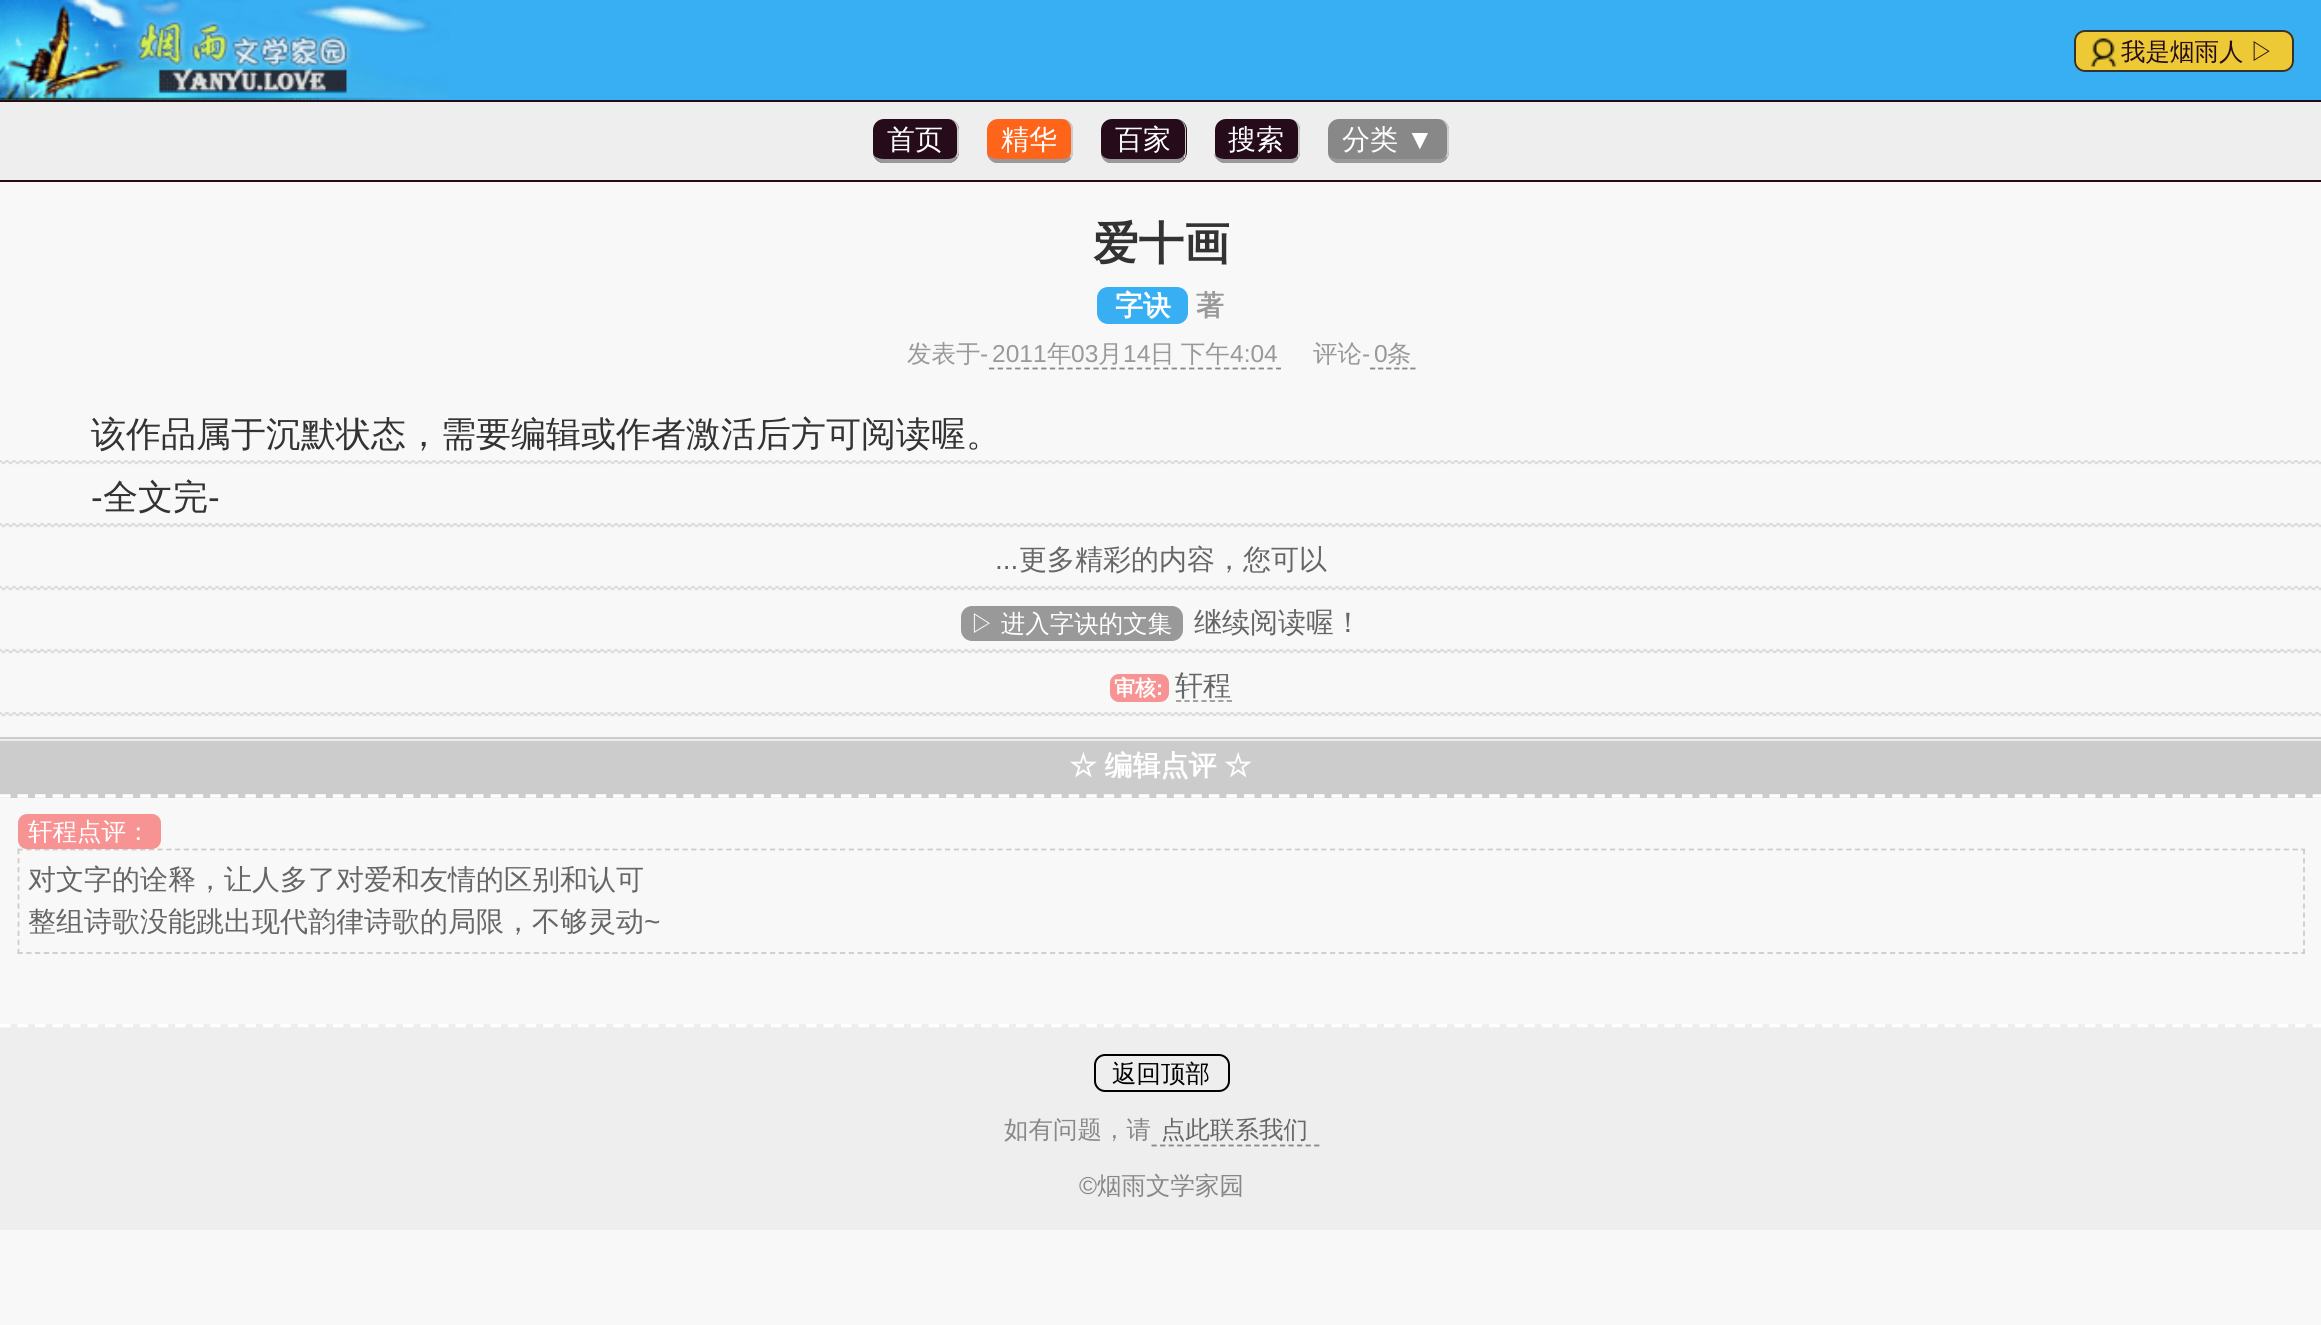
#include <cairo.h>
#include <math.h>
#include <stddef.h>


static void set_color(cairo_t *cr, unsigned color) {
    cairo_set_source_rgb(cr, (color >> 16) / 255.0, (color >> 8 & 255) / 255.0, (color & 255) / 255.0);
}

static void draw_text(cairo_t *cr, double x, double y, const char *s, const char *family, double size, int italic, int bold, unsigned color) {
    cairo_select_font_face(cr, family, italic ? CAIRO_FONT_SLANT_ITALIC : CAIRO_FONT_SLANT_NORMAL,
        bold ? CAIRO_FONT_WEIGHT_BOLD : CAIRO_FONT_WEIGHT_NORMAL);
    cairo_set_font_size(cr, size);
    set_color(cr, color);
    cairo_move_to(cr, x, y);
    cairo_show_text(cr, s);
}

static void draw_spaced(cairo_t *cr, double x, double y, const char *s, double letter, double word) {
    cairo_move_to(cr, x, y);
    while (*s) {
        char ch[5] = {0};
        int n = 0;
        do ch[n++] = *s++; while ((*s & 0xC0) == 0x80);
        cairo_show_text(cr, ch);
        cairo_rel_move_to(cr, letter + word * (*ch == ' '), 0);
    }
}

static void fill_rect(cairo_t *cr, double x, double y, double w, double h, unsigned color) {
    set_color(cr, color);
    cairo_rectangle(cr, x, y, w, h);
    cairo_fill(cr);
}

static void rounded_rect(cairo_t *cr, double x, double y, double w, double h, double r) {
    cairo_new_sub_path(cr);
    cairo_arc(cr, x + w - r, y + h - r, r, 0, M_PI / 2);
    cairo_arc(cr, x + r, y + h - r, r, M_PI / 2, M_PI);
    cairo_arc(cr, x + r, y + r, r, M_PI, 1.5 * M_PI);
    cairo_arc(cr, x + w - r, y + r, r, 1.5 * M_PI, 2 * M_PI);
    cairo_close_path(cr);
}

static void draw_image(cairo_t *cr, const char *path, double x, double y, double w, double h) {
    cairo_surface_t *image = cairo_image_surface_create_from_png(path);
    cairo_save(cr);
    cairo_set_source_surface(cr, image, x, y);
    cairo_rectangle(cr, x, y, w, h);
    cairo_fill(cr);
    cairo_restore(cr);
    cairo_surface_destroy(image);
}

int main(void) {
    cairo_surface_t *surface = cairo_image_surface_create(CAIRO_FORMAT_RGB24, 2321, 1325);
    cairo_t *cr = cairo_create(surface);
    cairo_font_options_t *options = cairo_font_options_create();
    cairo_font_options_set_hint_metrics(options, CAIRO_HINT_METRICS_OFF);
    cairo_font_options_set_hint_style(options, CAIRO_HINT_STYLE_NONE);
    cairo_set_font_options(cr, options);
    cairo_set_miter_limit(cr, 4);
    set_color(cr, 0xF8F8F8);
    cairo_paint(cr);
    fill_rect(cr, 0, 0, 2321, 100, 0x38AFF3);
    draw_image(cr, "assets/img1.png", 0, 0, 450, 100);
    set_color(cr, 0xEDC936);
    rounded_rect(cr, 2074, 30, 220, 42, 11);
    cairo_fill(cr);
    draw_image(cr, "assets/img2.png", 2090, 38, 27, 29);
    rounded_rect(cr, 2075, 31, 218, 40, 10);
    set_color(cr, 0x333333);
    cairo_stroke(cr);
    cairo_select_font_face(cr, "WenQuanYi Zen Hei Medium", CAIRO_FONT_SLANT_NORMAL, CAIRO_FONT_WEIGHT_NORMAL);
    cairo_set_font_size(cr, 24.5);
    set_color(cr, 0x260C1B);
    draw_spaced(cr, 2121, 60, "我是烟雨人 ▷", 0, -1);
    fill_rect(cr, 0, 102, 2321, 78, 0xEEEEEE);
    fill_rect(cr, 0, 100, 2321, 2, 0x260C1B);
    fill_rect(cr, 0, 180, 2321, 2, 0x260C1B);
    rounded_rect(cr, 873, 119, 86, 44, 11);
    cairo_fill(cr);
    draw_text(cr, 887, 149, "首页", "WenQuanYi Zen Hei Medium", 28, 0, 0, 0xFFFFFF);
    set_color(cr, 0xCCCCCC);
    cairo_new_path(cr);
    cairo_move_to(cr, 959, 130);
    cairo_curve_to(cr, 959, 124, 954, 119, 948, 119);
    cairo_curve_to(cr, 953, 119, 957, 124, 957, 130);
    cairo_line_to(cr, 957, 152);
    cairo_curve_to(cr, 957, 153.5, 956.5, 155, 955.5, 156);
    cairo_line_to(cr, 957, 158.5);
    cairo_curve_to(cr, 958, 156.5, 959, 154.5, 959, 152);
    cairo_close_path(cr);
    cairo_fill(cr);
    set_color(cr, 0x999999);
    cairo_new_path(cr);
    cairo_move_to(cr, 873, 154);
    cairo_curve_to(cr, 874, 157, 879, 159, 884, 159);
    cairo_line_to(cr, 948, 159);
    cairo_curve_to(cr, 951, 159, 954, 158, 956, 156);
    cairo_line_to(cr, 957, 158);
    cairo_curve_to(cr, 955, 161, 953, 162, 950, 163);
    cairo_line_to(cr, 882, 163);
    cairo_curve_to(cr, 878, 162, 874, 158, 873, 154);
    cairo_close_path(cr);
    cairo_fill(cr);
    set_color(cr, 0xFF651A);
    rounded_rect(cr, 987, 119, 86, 44, 11);
    cairo_fill(cr);
    set_color(cr, 0xCCCCCC);
    cairo_new_path(cr);
    cairo_move_to(cr, 1073, 127.5);
    cairo_curve_to(cr, 1071.5, 123, 1067, 119, 1062, 119);
    cairo_curve_to(cr, 1067, 119, 1071, 124, 1071, 130);
    cairo_line_to(cr, 1071, 152);
    cairo_curve_to(cr, 1071, 153.5, 1070.5, 155, 1069.5, 156);
    cairo_line_to(cr, 1070.5, 158.5);
    cairo_curve_to(cr, 1071.5, 157.5, 1072.5, 156, 1073, 154.5);
    cairo_close_path(cr);
    cairo_fill(cr);
    set_color(cr, 0x999999);
    cairo_new_path(cr);
    cairo_move_to(cr, 996, 163);
    cairo_curve_to(cr, 991, 162, 987, 157, 987, 152);
    cairo_curve_to(cr, 987, 156, 992, 159, 998, 159);
    cairo_line_to(cr, 1062, 159);
    cairo_curve_to(cr, 1065, 159, 1068, 158, 1069, 156);
    cairo_line_to(cr, 1071, 159);
    cairo_curve_to(cr, 1069, 161, 1067, 162, 1064, 163);
    cairo_close_path(cr);
    cairo_fill(cr);
    draw_text(cr, 1001, 149, "精华", "WenQuanYi Zen Hei Medium", 28, 0, 0, 0xFFFFFF);
    set_color(cr, 0x260C1B);
    rounded_rect(cr, 1101, 119, 86, 44, 11);
    cairo_fill(cr);
    set_color(cr, 0xCCCCCC);
    cairo_new_path(cr);
    cairo_move_to(cr, 1186, 130);
    cairo_curve_to(cr, 1186, 124, 1182, 119, 1176, 119);
    cairo_curve_to(cr, 1181, 119, 1185, 124, 1185, 130);
    cairo_line_to(cr, 1185, 152);
    cairo_curve_to(cr, 1185, 153.5, 1184.5, 155, 1183, 156);
    cairo_line_to(cr, 1184.5, 158.5);
    cairo_curve_to(cr, 1185.5, 156.5, 1186, 154.5, 1186, 152);
    cairo_close_path(cr);
    cairo_fill(cr);
    set_color(cr, 0x999999);
    cairo_new_path(cr);
    cairo_move_to(cr, 1178, 163);
    cairo_line_to(cr, 1109, 163);
    cairo_curve_to(cr, 1104, 162, 1101, 157, 1101, 152);
    cairo_curve_to(cr, 1101, 156, 1105, 159, 1111, 159);
    cairo_line_to(cr, 1176, 159);
    cairo_curve_to(cr, 1179, 159, 1182, 158, 1183, 156);
    cairo_line_to(cr, 1184, 158);
    cairo_curve_to(cr, 1183, 161, 1181, 162, 1178, 163);
    cairo_close_path(cr);
    cairo_fill(cr);
    draw_text(cr, 1115, 149, "百家", "WenQuanYi Zen Hei Medium", 28, 0, 0, 0xFFFFFF);
    set_color(cr, 0x260C1B);
    rounded_rect(cr, 1215, 119, 85, 44, 11);
    cairo_fill(cr);
    draw_text(cr, 1228, 149, "搜索", "WenQuanYi Zen Hei Medium", 28, 0, 0, 0xFFFFFF);
    set_color(cr, 0xCCCCCC);
    cairo_new_path(cr);
    cairo_move_to(cr, 1300, 130);
    cairo_curve_to(cr, 1300, 124, 1296, 119, 1290, 119);
    cairo_curve_to(cr, 1295, 119, 1298, 124, 1298, 130);
    cairo_line_to(cr, 1298, 152);
    cairo_curve_to(cr, 1298, 153.5, 1297.5, 155, 1297, 156);
    cairo_line_to(cr, 1298, 158.5);
    cairo_curve_to(cr, 1299.5, 156.5, 1300, 154.5, 1300, 152);
    cairo_close_path(cr);
    cairo_fill(cr);
    set_color(cr, 0x999999);
    cairo_new_path(cr);
    cairo_move_to(cr, 1214, 154);
    cairo_curve_to(cr, 1216, 157, 1220, 159, 1225, 159);
    cairo_line_to(cr, 1290, 159);
    cairo_curve_to(cr, 1293, 159, 1296, 158, 1297, 156);
    cairo_line_to(cr, 1298, 159);
    cairo_curve_to(cr, 1297, 161, 1295, 162, 1292, 163);
    cairo_line_to(cr, 1223, 163);
    cairo_curve_to(cr, 1219, 162, 1216, 159, 1214, 155);
    cairo_close_path(cr);
    cairo_fill(cr);
    set_color(cr, 0x888888);
    rounded_rect(cr, 1328, 119, 121, 44, 11);
    cairo_fill(cr);
    draw_text(cr, 1342, 149, "分类", "WenQuanYi Zen Hei Medium", 28, 0, 0, 0xFFFFFF);
    draw_text(cr, 1406, 149, "▼", "Liberation Sans", 28, 0, 0, 0xFFFFFF);
    set_color(cr, 0xCCCCCC);
    cairo_new_path(cr);
    cairo_move_to(cr, 1449, 130);
    cairo_curve_to(cr, 1449, 124, 1444, 119, 1438, 119);
    cairo_curve_to(cr, 1443, 119, 1447, 124, 1447, 130);
    cairo_line_to(cr, 1447, 152);
    cairo_curve_to(cr, 1447, 153.5, 1446.5, 155, 1445.5, 156);
    cairo_line_to(cr, 1447, 158.5);
    cairo_curve_to(cr, 1448, 156.5, 1449, 154.5, 1449, 152);
    cairo_close_path(cr);
    cairo_fill(cr);
    set_color(cr, 0x999999);
    cairo_new_path(cr);
    cairo_move_to(cr, 1328, 154);
    cairo_curve_to(cr, 1329, 157, 1334, 159, 1339, 159);
    cairo_line_to(cr, 1438, 159);
    cairo_curve_to(cr, 1441, 159, 1444, 158, 1446, 156);
    cairo_line_to(cr, 1447, 158);
    cairo_curve_to(cr, 1445, 161, 1443, 162, 1440, 163);
    cairo_line_to(cr, 1337, 163);
    cairo_curve_to(cr, 1333, 162, 1329, 158, 1328, 154);
    cairo_close_path(cr);
    cairo_fill(cr);
    draw_text(cr, 1093, 259, "爱十画", "WenQuanYi Zen Hei", 45.5, 0, 1, 0x333333);
    set_color(cr, 0x38AFF3);
    rounded_rect(cr, 1097, 287, 91, 37, 11);
    cairo_fill(cr);
    draw_text(cr, 1115, 315, "字诀", "WenQuanYi Zen Hei", 28, 0, 1, 0xFFFFFF);
    draw_text(cr, 1196, 315, "著", "WenQuanYi Zen Hei", 28, 0, 1, 0x999999);
    draw_text(cr, 907, 362, "发表于", "WenQuanYi Zen Hei Medium", 24.5, 0, 0, 0x999999);
    draw_text(cr, 980, 362, "-", "Liberation Sans", 24.5, 0, 0, 0x999999);
    draw_text(cr, 992, 362, "2011", "Liberation Sans", 24.5, 0, 0, 0x999999);
    draw_text(cr, 1047, 362, "年", "WenQuanYi Zen Hei Medium", 24.5, 0, 0, 0x999999);
    draw_text(cr, 1071, 362, "03", "Liberation Sans", 24.5, 0, 0, 0x999999);
    draw_text(cr, 1098, 362, "月", "WenQuanYi Zen Hei Medium", 24.5, 0, 0, 0x999999);
    cairo_new_path(cr);
    cairo_move_to(cr, 989, 368.5);
    cairo_line_to(cr, 1281, 368.5);
    set_color(cr, 0x888888);
    cairo_set_line_width(cr, 1.8);
    cairo_set_dash(cr, (double[]){5.25, 3.45}, 2, 0);
    cairo_stroke(cr);
    draw_text(cr, 1123, 362, "14", "Liberation Sans", 24.5, 0, 0, 0x999999);
    cairo_select_font_face(cr, "WenQuanYi Zen Hei Medium", CAIRO_FONT_SLANT_NORMAL, CAIRO_FONT_WEIGHT_NORMAL);
    draw_spaced(cr, 1150, 362, "日 下午", 0, -1);
    draw_text(cr, 1230, 362, "4:04", "Liberation Sans", 24.5, 0, 0, 0x999999);
    draw_text(cr, 1313, 362, "评论", "WenQuanYi Zen Hei Medium", 24.5, 0, 0, 0x999999);
    draw_text(cr, 1362, 362, "-", "Liberation Sans", 24.5, 0, 0, 0x999999);
    cairo_new_path(cr);
    cairo_move_to(cr, 1370, 368.5);
    cairo_line_to(cr, 1416, 368.5);
    set_color(cr, 0x888888);
    cairo_set_dash(cr, (double[]){5.25, 2.8}, 2, 0);
    cairo_stroke(cr);
    draw_text(cr, 1374, 362, "0", "Liberation Sans", 24.5, 0, 0, 0x999999);
    draw_text(cr, 1387, 362, "条", "WenQuanYi Zen Hei Medium", 24.5, 0, 0, 0x999999);
    draw_image(cr, "assets/img3.png", 0, 460, 2321, 257);
    draw_text(cr, 91, 446, "该作品属于沉默状态，需要编辑或作者激活后方可阅读喔。", "WenQuanYi Zen Hei Medium", 35, 0, 0, 0x333333);
    draw_text(cr, 91, 509, "-", "Liberation Sans", 35, 0, 0, 0x333333);
    draw_text(cr, 103, 509, "全文完", "WenQuanYi Zen Hei Medium", 35, 0, 0, 0x333333);
    draw_text(cr, 208, 509, "-", "Liberation Sans", 35, 0, 0, 0x333333);
    draw_text(cr, 995, 569, "...", "Liberation Sans", 28, 0, 0, 0x666666);
    draw_text(cr, 1019, 569, "更多精彩的内容，您可以", "WenQuanYi Zen Hei Medium", 28, 0, 0, 0x666666);
    set_color(cr, 0x999999);
    rounded_rect(cr, 961, 606, 222, 35, 11);
    cairo_fill(cr);
    cairo_set_font_size(cr, 24.5);
    set_color(cr, 0xFFFFFF);
    draw_spaced(cr, 970, 632, "▷ 进入字诀的文集", 0, -1);
    draw_text(cr, 1194, 632, "继续阅读喔！", "WenQuanYi Zen Hei Medium", 28, 0, 0, 0x666666);
    set_color(cr, 0xF89393);
    rounded_rect(cr, 1110, 674, 59, 28, 9);
    cairo_fill(cr);
    draw_text(cr, 1114, 695, "审核", "WenQuanYi Zen Hei", 21, 0, 1, 0xFFFFFF);
    draw_text(cr, 1156, 695, ":", "Liberation Sans", 21, 0, 1, 0xFFFFFF);
    draw_text(cr, 1175, 695, "轩程", "WenQuanYi Zen Hei Medium", 28, 0, 0, 0x666666);
    cairo_new_path(cr);
    cairo_move_to(cr, 1176, 701);
    cairo_line_to(cr, 1232, 701);
    set_color(cr, 0x999999);
    cairo_set_dash(cr, (double[]){5.25, 3.2}, 2, 0);
    cairo_stroke(cr);
    fill_rect(cr, 0, 737, 2321, 2, 0xCCCCCC);
    fill_rect(cr, 0, 741, 2321, 57, 0xCCCCCC);
    fill_rect(cr, 0, 739, 2321, 2, 0xEEEEEE);
    cairo_new_path(cr);
    cairo_move_to(cr, 0, 796);
    cairo_line_to(cr, 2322, 796);
    set_color(cr, 0xFFFFFF);
    cairo_set_line_width(cr, 3.5);
    cairo_set_dash(cr, (double[]){10.5, 7.02}, 2, 0);
    cairo_stroke(cr);
    cairo_select_font_face(cr, "WenQuanYi Zen Hei", CAIRO_FONT_SLANT_NORMAL, CAIRO_FONT_WEIGHT_BOLD);
    draw_spaced(cr, 1069, 775, "☆ 编辑点评 ☆", 0, -1);
    cairo_new_path(cr);
    cairo_move_to(cr, 17.5, 849.5);
    cairo_line_to(cr, 2305, 849.5);
    set_color(cr, 0xCCCCCC);
    cairo_set_line_width(cr, 1.8);
    cairo_set_dash(cr, (double[]){5.25, 3.5}, 2, 0);
    cairo_stroke(cr);
    set_color(cr, 0xF89393);
    rounded_rect(cr, 18, 814, 143, 35, 9);
    cairo_fill(cr);
    draw_text(cr, 28, 840, "轩程点评：", "WenQuanYi Zen Hei Medium", 24.5, 0, 0, 0xFFFFFF);
    cairo_new_path(cr);
    cairo_move_to(cr, 2304, 849);
    cairo_line_to(cr, 2304, 954);
    set_color(cr, 0xCCCCCC);
    cairo_set_dash(cr, (double[]){5.25, 3.82}, 2, 0);
    cairo_stroke(cr);
    cairo_new_path(cr);
    cairo_move_to(cr, 17.5, 953);
    cairo_line_to(cr, 2305, 953);
    cairo_set_dash(cr, (double[]){5.25, 3.5}, 2, 0);
    cairo_stroke(cr);
    cairo_new_path(cr);
    cairo_move_to(cr, 18.5, 849);
    cairo_line_to(cr, 18.5, 954);
    cairo_set_dash(cr, (double[]){5.25, 3.82}, 2, 0);
    cairo_stroke(cr);
    draw_text(cr, 28, 889, "对文字的诠释，让人多了对爱和友情的区别和认可", "WenQuanYi Zen Hei Medium", 28, 0, 0, 0x666666);
    draw_text(cr, 28, 931, "整组诗歌没能跳出现代韵律诗歌的局限，不够灵动", "WenQuanYi Zen Hei Medium", 28, 0, 0, 0x666666);
    draw_text(cr, 644, 931, "~", "Liberation Sans", 28, 0, 0, 0x666666);
    fill_rect(cr, 0, 1024, 2321, 206, 0xEEEEEE);
    cairo_new_path(cr);
    cairo_move_to(cr, 0, 1025.5);
    cairo_line_to(cr, 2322, 1025.5);
    set_color(cr, 0xFFFFFF);
    cairo_set_line_width(cr, 3.5);
    cairo_set_dash(cr, (double[]){10.5, 7.02}, 2, 0);
    cairo_stroke(cr);
    rounded_rect(cr, 1095, 1055, 134, 36, 10);
    set_color(cr, 0x000000);
    cairo_set_line_width(cr, 2);
    cairo_set_dash(cr, NULL, 0, 0);
    cairo_stroke(cr);
    draw_text(cr, 1112, 1082, "返回顶部", "WenQuanYi Zen Hei Medium", 24.5, 0, 0, 0x000000);
    draw_text(cr, 1004, 1138, "如有问题，请", "WenQuanYi Zen Hei Medium", 24.5, 0, 0, 0x888888);
    draw_text(cr, 1161, 1138, "点此联系我们", "WenQuanYi Zen Hei Medium", 24.5, 0, 0, 0x666666);
    cairo_new_path(cr);
    cairo_move_to(cr, 1151.5, 1145.5);
    cairo_line_to(cr, 1319.5, 1145.5);
    set_color(cr, 0x888888);
    cairo_set_line_width(cr, 1.8);
    cairo_set_dash(cr, (double[]){5.25, 3.31}, 2, 0);
    cairo_stroke(cr);
    draw_text(cr, 1079, 1194, "©", "Liberation Sans", 24.5, 0, 0, 0x888888);
    draw_text(cr, 1097, 1194, "烟雨文学家园", "WenQuanYi Zen Hei Medium", 24.5, 0, 0, 0x888888);
    cairo_surface_write_to_png(surface, "output.png");
    cairo_font_options_destroy(options);
    cairo_destroy(cr);
    cairo_surface_destroy(surface);
    return 0;
}
